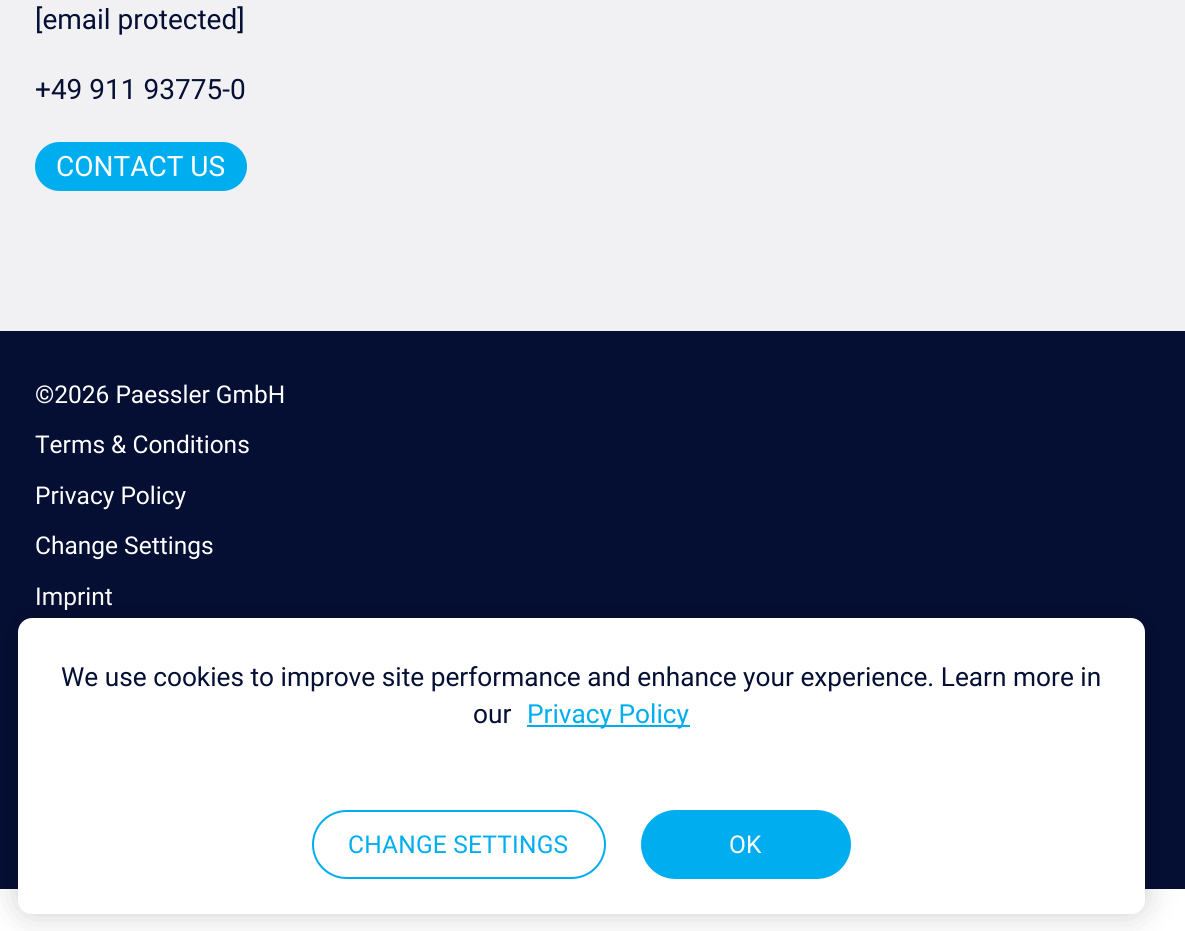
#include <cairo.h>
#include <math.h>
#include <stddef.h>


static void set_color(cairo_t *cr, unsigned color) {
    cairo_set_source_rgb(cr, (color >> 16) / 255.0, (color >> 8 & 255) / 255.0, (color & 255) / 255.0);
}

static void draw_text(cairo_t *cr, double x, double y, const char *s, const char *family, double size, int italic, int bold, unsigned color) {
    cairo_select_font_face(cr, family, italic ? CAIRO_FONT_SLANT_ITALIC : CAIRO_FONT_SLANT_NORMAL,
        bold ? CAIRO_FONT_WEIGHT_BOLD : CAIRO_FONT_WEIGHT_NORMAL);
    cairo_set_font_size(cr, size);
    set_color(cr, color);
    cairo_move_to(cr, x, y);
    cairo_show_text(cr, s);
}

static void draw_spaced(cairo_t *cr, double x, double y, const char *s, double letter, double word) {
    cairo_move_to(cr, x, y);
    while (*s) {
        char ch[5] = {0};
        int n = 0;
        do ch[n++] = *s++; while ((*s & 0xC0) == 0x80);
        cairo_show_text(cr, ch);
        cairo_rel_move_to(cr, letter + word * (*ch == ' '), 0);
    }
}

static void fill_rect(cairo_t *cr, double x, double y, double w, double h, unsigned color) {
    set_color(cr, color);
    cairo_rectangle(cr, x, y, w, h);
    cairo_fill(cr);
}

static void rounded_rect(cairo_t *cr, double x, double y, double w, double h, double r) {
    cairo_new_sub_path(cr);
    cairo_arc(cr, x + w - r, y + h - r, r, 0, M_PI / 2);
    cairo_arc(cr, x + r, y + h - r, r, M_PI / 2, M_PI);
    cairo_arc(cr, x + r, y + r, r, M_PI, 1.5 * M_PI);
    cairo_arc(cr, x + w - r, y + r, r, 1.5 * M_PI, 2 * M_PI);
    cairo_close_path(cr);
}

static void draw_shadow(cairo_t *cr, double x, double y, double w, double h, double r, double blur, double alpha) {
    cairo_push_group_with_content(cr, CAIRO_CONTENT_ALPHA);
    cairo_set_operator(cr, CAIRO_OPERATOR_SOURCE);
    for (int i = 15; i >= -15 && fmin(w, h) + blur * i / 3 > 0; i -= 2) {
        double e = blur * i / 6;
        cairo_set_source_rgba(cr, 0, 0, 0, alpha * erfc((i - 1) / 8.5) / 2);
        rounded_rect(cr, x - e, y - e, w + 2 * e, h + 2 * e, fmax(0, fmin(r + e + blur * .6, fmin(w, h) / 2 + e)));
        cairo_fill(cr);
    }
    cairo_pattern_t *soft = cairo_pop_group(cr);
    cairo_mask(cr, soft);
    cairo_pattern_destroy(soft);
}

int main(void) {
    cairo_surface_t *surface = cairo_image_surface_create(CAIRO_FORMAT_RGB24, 1185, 931);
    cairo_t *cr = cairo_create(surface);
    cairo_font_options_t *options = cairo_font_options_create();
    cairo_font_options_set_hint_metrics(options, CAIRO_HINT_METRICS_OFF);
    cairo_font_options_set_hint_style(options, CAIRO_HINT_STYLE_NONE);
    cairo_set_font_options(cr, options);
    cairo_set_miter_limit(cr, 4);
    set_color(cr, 0xFFFFFF);
    cairo_paint(cr);
    fill_rect(cr, 0, 0, 1185, 331, 0xF1F1F3);
    draw_text(cr, 35, 29, "[email protected]", "Roboto", 28, 0, 0, 0x050F34);
    draw_text(cr, 35, 99, "+49 911 93775-0", "Roboto", 28, 0, 0, 0x050F34);
    set_color(cr, 0x00AEEF);
    rounded_rect(cr, 35, 142, 212, 49, 24.5);
    cairo_fill(cr);
    draw_text(cr, 56, 176, "CONTACT US", "Roboto", 28, 0, 0, 0xFFFFFF);
    fill_rect(cr, 0, 331, 1185, 558, 0x050F34);
    draw_text(cr, 35, 403, "©2026 Paessler GmbH", "Roboto", 24.5, 0, 0, 0xFFFFFF);
    draw_text(cr, 35, 453, "Terms & Conditions", "Roboto", 24.5, 0, 0, 0xFFFFFF);
    draw_text(cr, 35, 504, "Privacy Policy", "Roboto", 24.5, 0, 0, 0xFFFFFF);
    draw_text(cr, 35, 554, "Change Settings", "Roboto", 24.5, 0, 0, 0xFFFFFF);
    draw_text(cr, 35, 605, "Imprint", "Roboto", 24.5, 0, 0, 0xFFFFFF);
    set_color(cr, 0x000000);
    draw_shadow(cr, 18, 618, 1127, 296, 14, 16, 0.2);
    set_color(cr, 0xFFFFFF);
    rounded_rect(cr, 18, 618, 1127, 296, 14);
    cairo_fill(cr);
    draw_text(cr, 61, 686, "We use cookies to improve site performance and enhance your experience. Learn more in", "Roboto", 26.25, 0, 0, 0x050F34);
    draw_text(cr, 473, 723, "our", "Roboto", 26.25, 0, 0, 0x050F34);
    fill_rect(cr, 527, 725, 163, 2, 0x00AEEF);
    draw_text(cr, 527, 723, "Privacy Policy", "Roboto", 26.25, 0, 0, 0x00AEEF);
    rounded_rect(cr, 313, 811, 292, 67, 33.5);
    cairo_stroke(cr);
    cairo_set_font_size(cr, 24.5);
    draw_spaced(cr, 348, 853, "CHANGE SETTINGS", 0.25, 0);
    rounded_rect(cr, 642, 811, 208, 67, 33.5);
    cairo_fill_preserve(cr);
    cairo_stroke(cr);
    set_color(cr, 0xFFFFFF);
    draw_spaced(cr, 729, 853, "OK", 0.25, 0);
    cairo_surface_write_to_png(surface, "output.png");
    cairo_font_options_destroy(options);
    cairo_destroy(cr);
    cairo_surface_destroy(surface);
    return 0;
}
